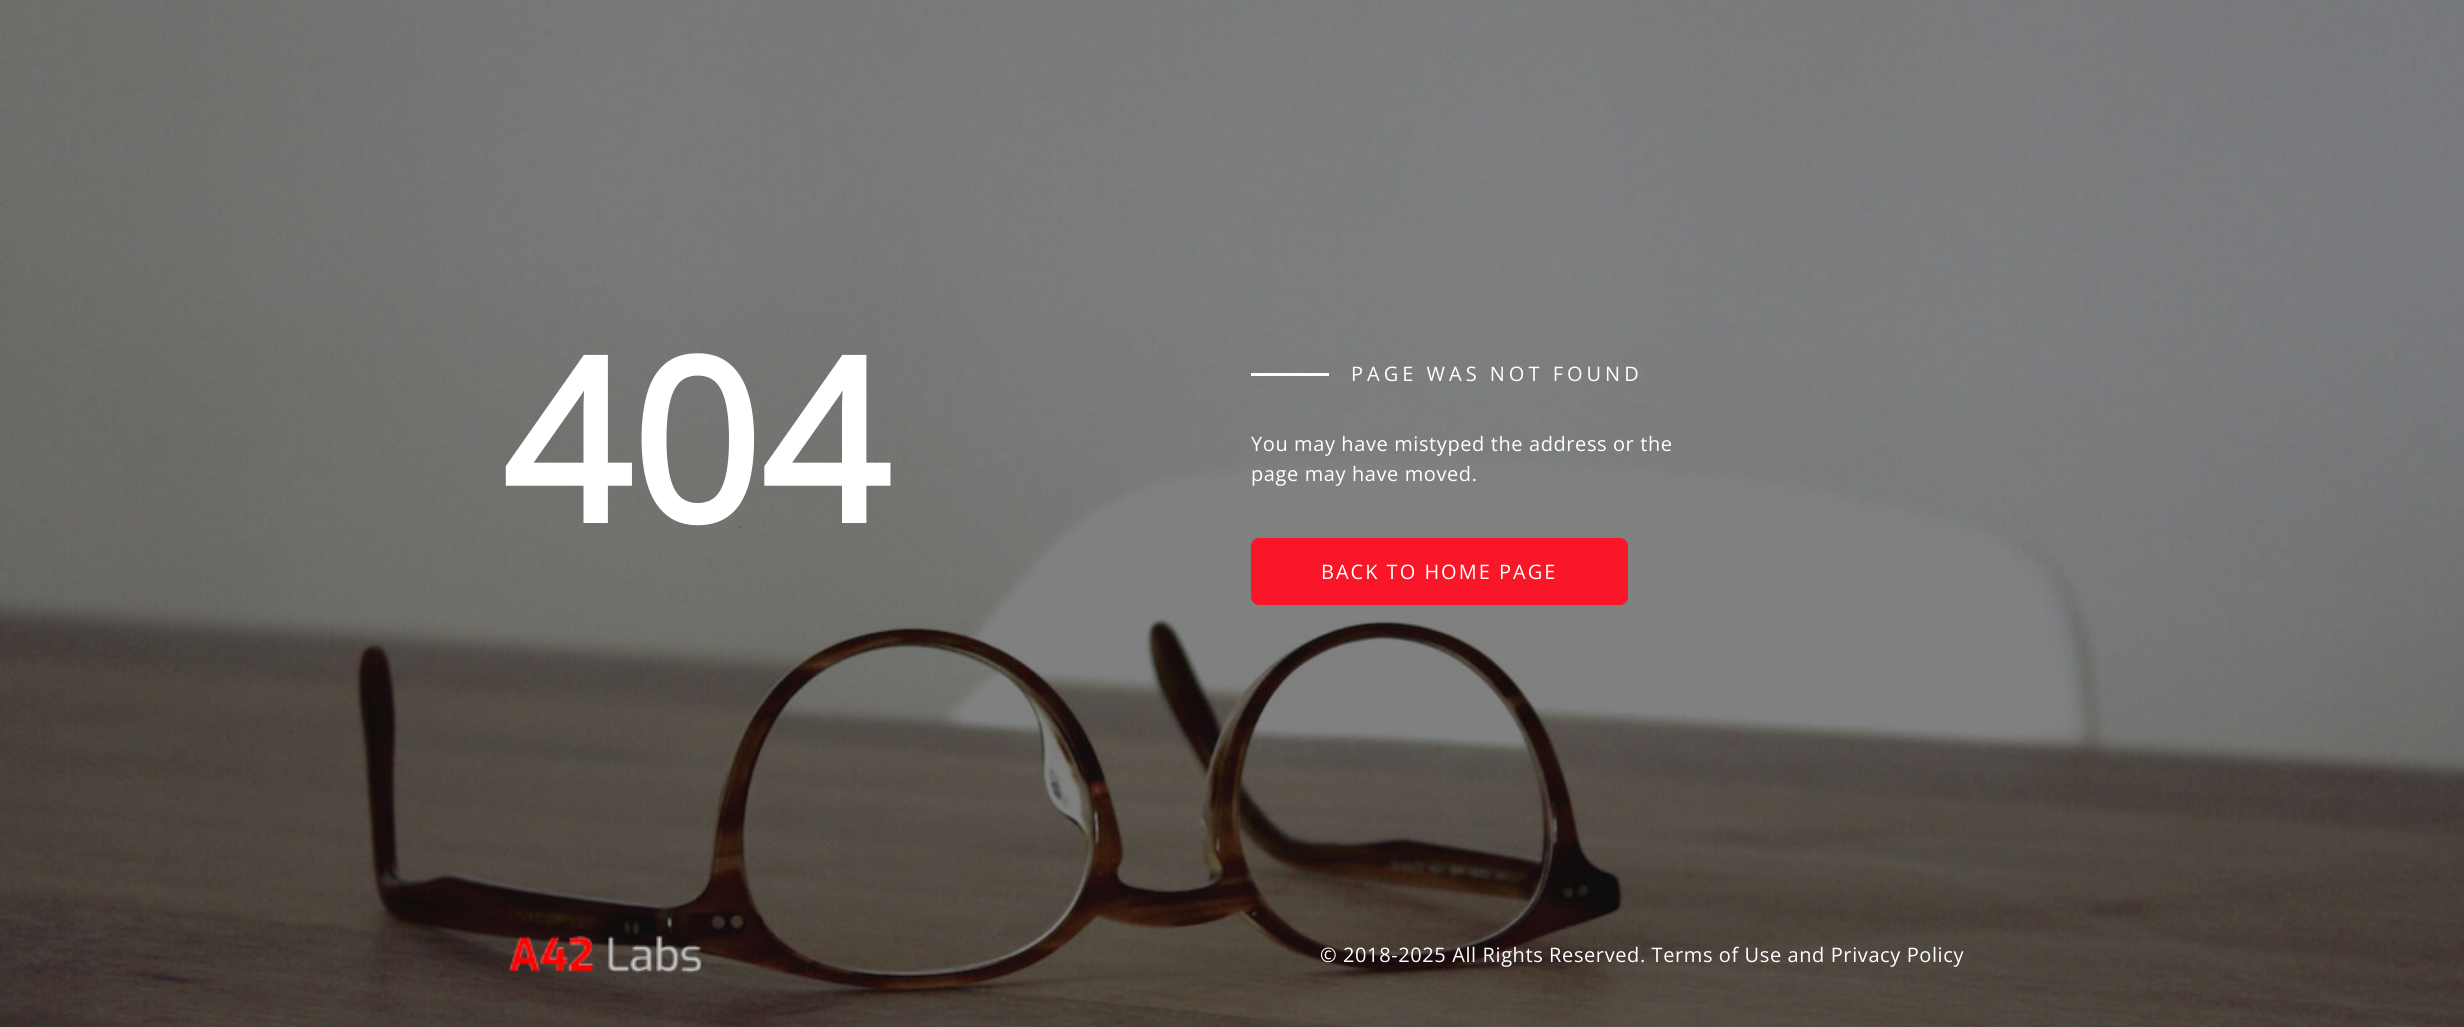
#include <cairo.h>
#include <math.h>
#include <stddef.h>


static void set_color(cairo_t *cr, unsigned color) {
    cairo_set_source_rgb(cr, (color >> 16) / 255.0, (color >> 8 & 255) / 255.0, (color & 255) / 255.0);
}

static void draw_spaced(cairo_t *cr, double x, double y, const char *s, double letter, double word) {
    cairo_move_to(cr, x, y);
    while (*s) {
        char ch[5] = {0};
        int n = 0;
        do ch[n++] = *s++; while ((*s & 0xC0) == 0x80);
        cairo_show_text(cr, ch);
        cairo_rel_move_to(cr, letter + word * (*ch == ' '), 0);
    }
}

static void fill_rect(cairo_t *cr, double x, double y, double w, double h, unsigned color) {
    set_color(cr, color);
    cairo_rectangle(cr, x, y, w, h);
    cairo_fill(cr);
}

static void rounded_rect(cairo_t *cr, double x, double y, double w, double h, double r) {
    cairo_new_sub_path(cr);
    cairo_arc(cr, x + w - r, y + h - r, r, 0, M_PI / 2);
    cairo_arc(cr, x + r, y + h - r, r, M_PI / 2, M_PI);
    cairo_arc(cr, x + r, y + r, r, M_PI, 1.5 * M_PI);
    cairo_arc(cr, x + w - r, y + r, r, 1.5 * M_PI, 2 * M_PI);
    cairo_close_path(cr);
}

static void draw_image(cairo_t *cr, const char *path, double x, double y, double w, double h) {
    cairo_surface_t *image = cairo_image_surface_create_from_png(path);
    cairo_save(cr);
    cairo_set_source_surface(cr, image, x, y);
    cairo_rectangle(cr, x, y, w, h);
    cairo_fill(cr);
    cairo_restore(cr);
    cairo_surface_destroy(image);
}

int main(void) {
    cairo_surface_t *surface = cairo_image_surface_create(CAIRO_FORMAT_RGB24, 2464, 1027);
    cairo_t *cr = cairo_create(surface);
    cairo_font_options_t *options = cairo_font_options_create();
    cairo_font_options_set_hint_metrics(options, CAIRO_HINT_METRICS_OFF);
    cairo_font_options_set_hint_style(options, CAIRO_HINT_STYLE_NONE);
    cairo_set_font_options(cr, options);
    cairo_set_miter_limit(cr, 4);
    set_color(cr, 0xFFFFFF);
    cairo_paint(cr);
    draw_image(cr, "assets/img1.png", 0, 0, 2464, 1027);
    cairo_select_font_face(cr, "Open Sans", CAIRO_FONT_SLANT_NORMAL, CAIRO_FONT_WEIGHT_BOLD);
    cairo_set_font_size(cr, 225);
    set_color(cr, 0xFFFFFF);
    draw_spaced(cr, 501, 523, "404", 0.6, 0);
    fill_rect(cr, 1251, 373, 78, 3, 0xFFFFFF);
    cairo_select_font_face(cr, "Open Sans", CAIRO_FONT_SLANT_NORMAL, CAIRO_FONT_WEIGHT_NORMAL);
    cairo_set_font_size(cr, 20);
    draw_spaced(cr, 1351, 381, "PAGE WAS NOT FOUND", 4, 0);
    draw_spaced(cr, 1251, 451, "You may have mistyped the address or the", 0.6, 0);
    draw_spaced(cr, 1251, 481, "page may have moved.", 0.6, 0);
    set_color(cr, 0xF91628);
    rounded_rect(cr, 1251.5, 538.5, 376, 66, 7.5);
    cairo_fill_preserve(cr);
    cairo_set_line_width(cr, 1);
    cairo_stroke(cr);
    set_color(cr, 0xFFFFFF);
    draw_spaced(cr, 1321, 579, "BACK TO HOME PAGE", 2, 0);
    draw_image(cr, "assets/img2.png", 508, 935, 194, 38);
    draw_spaced(cr, 1320, 962, "© 2018-2025 All Rights Reserved. Terms of Use and Privacy Policy", 0.6, 0);
    cairo_surface_write_to_png(surface, "output.png");
    cairo_font_options_destroy(options);
    cairo_destroy(cr);
    cairo_surface_destroy(surface);
    return 0;
}
